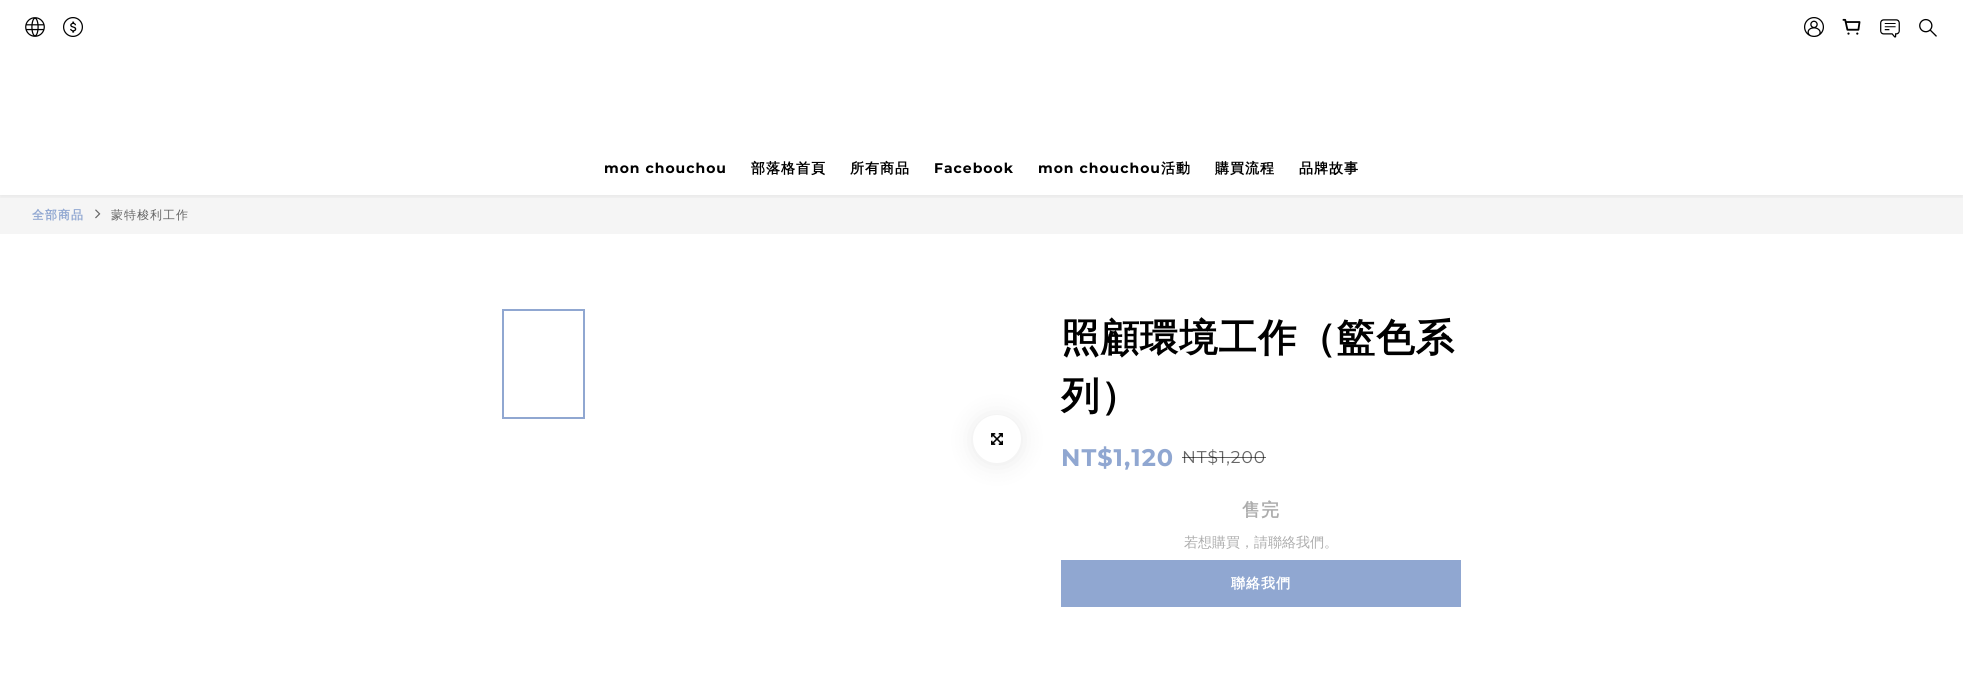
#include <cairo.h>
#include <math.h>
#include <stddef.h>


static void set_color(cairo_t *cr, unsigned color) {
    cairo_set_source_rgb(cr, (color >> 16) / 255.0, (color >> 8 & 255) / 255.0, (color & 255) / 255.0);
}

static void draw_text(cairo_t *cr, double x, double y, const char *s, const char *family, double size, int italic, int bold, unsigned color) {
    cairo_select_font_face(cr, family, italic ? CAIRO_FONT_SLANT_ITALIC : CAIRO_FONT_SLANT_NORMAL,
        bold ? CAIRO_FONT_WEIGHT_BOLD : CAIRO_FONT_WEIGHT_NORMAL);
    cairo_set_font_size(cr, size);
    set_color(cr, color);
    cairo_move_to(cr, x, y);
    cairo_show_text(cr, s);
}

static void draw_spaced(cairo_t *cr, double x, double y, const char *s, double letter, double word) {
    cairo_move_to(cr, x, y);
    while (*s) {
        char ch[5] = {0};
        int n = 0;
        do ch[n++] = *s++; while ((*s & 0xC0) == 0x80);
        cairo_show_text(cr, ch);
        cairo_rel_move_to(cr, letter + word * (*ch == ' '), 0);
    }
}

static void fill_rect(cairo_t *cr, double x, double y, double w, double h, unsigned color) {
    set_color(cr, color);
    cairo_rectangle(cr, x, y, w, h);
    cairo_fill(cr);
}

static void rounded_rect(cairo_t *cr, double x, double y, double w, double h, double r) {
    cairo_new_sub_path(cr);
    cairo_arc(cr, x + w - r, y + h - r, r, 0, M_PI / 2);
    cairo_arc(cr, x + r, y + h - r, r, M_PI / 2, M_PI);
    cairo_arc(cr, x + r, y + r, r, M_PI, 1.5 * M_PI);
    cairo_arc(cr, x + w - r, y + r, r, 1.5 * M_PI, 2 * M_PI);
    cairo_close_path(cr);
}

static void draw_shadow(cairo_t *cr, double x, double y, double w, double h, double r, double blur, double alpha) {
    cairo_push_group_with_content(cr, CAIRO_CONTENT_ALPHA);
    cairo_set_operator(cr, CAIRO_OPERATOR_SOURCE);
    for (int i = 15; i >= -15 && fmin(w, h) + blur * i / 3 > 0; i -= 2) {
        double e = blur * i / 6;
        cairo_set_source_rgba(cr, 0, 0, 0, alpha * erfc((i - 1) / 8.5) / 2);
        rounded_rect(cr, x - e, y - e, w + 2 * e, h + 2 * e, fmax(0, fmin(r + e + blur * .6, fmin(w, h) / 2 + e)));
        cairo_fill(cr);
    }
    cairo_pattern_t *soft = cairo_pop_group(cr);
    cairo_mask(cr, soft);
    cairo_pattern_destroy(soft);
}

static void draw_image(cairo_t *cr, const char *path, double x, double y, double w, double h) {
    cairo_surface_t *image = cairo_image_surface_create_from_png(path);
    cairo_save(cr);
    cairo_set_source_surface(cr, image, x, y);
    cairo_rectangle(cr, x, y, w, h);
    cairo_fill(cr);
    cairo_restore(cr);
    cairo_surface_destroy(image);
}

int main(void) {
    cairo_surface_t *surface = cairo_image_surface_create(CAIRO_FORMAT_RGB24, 1963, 685);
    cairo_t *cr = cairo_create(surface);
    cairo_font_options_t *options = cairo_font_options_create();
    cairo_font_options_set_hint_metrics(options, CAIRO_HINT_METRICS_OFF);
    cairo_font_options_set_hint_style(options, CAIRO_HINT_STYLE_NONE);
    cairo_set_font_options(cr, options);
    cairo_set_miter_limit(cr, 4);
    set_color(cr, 0xFFFFFF);
    cairo_paint(cr);
    fill_rect(cr, 0, 195, 1963, 39, 0xF5F5F5);
    cairo_save(cr);
    cairo_rectangle(cr, 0, 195, 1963, 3);
    cairo_clip(cr);
    set_color(cr, 0x000000);
    draw_shadow(cr, 0, 2, 1963, 195, 0, 3, 0.06);
    cairo_restore(cr);
    draw_image(cr, "assets/img1.png", 25, 17, 20, 20);
    draw_image(cr, "assets/img2.png", 63, 17, 20, 20);
    draw_image(cr, "assets/img3.png", 1804, 17, 20, 20);
    draw_image(cr, "assets/img4.png", 1842, 18, 19, 17);
    draw_image(cr, "assets/img5.png", 1880, 19, 20, 19);
    draw_image(cr, "assets/img6.png", 1919, 18, 18, 19);
    cairo_select_font_face(cr, "Montserrat", CAIRO_FONT_SLANT_NORMAL, CAIRO_FONT_WEIGHT_BOLD);
    cairo_set_font_size(cr, 14);
    set_color(cr, 0x000000);
    draw_spaced(cr, 604, 173, "mon chouchou", 1, 0);
    cairo_select_font_face(cr, "WenQuanYi Zen Hei", CAIRO_FONT_SLANT_NORMAL, CAIRO_FONT_WEIGHT_BOLD);
    draw_spaced(cr, 751, 173, "部落格首頁", 1, 0);
    draw_spaced(cr, 850, 173, "所有商品", 1, 0);
    cairo_select_font_face(cr, "Montserrat", CAIRO_FONT_SLANT_NORMAL, CAIRO_FONT_WEIGHT_BOLD);
    draw_spaced(cr, 934, 173, "Facebook", 1, 0);
    draw_spaced(cr, 1038, 173, "mon chouchou", 1, 0);
    cairo_select_font_face(cr, "WenQuanYi Zen Hei", CAIRO_FONT_SLANT_NORMAL, CAIRO_FONT_WEIGHT_BOLD);
    draw_spaced(cr, 1161, 173, "活動", 1, 0);
    draw_spaced(cr, 1215, 173, "購買流程", 1, 0);
    draw_spaced(cr, 1299, 173, "品牌故事", 1, 0);
    cairo_set_font_size(cr, 12);
    set_color(cr, 0x90A7D1);
    draw_spaced(cr, 32, 219, "全部商品", 1, 0);
    draw_image(cr, "assets/img7.png", 95, 209, 6, 10);
    cairo_select_font_face(cr, "WenQuanYi Zen Hei Medium", CAIRO_FONT_SLANT_NORMAL, CAIRO_FONT_WEIGHT_NORMAL);
    set_color(cr, 0x666666);
    draw_spaced(cr, 111, 219, "蒙特梭利工作", 1, 0);
    cairo_rectangle(cr, 503, 310, 81, 108);
    set_color(cr, 0x90A7D1);
    cairo_stroke(cr);
    set_color(cr, 0x000000);
    draw_shadow(cr, 973, 416, 48, 48, 24, 12, 0.09);
    set_color(cr, 0xFFFFFF);
    cairo_arc(cr, 997, 439, 24, 0, 2 * M_PI);
    cairo_fill(cr);
    draw_image(cr, "assets/img8.png", 991, 433, 12, 12);
    cairo_select_font_face(cr, "WenQuanYi Zen Hei", CAIRO_FONT_SLANT_NORMAL, CAIRO_FONT_WEIGHT_BOLD);
    cairo_set_font_size(cr, 38.4);
    set_color(cr, 0x000000);
    draw_spaced(cr, 1061, 351, "照顧環境工作（籃色系", 1, 0);
    draw_spaced(cr, 1061, 409, "列）", 1, 0);
    cairo_select_font_face(cr, "Montserrat", CAIRO_FONT_SLANT_NORMAL, CAIRO_FONT_WEIGHT_BOLD);
    cairo_set_font_size(cr, 24);
    set_color(cr, 0x90A7D1);
    draw_spaced(cr, 1061, 466, "NT$1,120", 1, 0);
    cairo_select_font_face(cr, "Montserrat", CAIRO_FONT_SLANT_NORMAL, CAIRO_FONT_WEIGHT_NORMAL);
    cairo_set_font_size(cr, 17);
    set_color(cr, 0x666666);
    draw_spaced(cr, 1182, 463, "NT$1,200", 1, 0);
    cairo_set_source_rgba(cr, 0, 0, 0, 0.6);
    cairo_rectangle(cr, 1182, 457, 84, 1);
    cairo_fill(cr);
    cairo_select_font_face(cr, "WenQuanYi Zen Hei", CAIRO_FONT_SLANT_NORMAL, CAIRO_FONT_WEIGHT_BOLD);
    cairo_set_font_size(cr, 18);
    set_color(cr, 0xADADAD);
    draw_spaced(cr, 1242, 516, "售完", 1, 0);
    draw_text(cr, 1184, 547, "若想購買，請聯絡我們。", "WenQuanYi Zen Hei Medium", 14, 0, 0, 0xADADAD);
    fill_rect(cr, 1061, 560, 400, 47, 0x90A7D1);
    cairo_select_font_face(cr, "WenQuanYi Zen Hei", CAIRO_FONT_SLANT_NORMAL, CAIRO_FONT_WEIGHT_BOLD);
    set_color(cr, 0xFFFFFF);
    draw_spaced(cr, 1231, 588, "聯絡我們", 1, 0);
    cairo_surface_write_to_png(surface, "output.png");
    cairo_font_options_destroy(options);
    cairo_destroy(cr);
    cairo_surface_destroy(surface);
    return 0;
}
